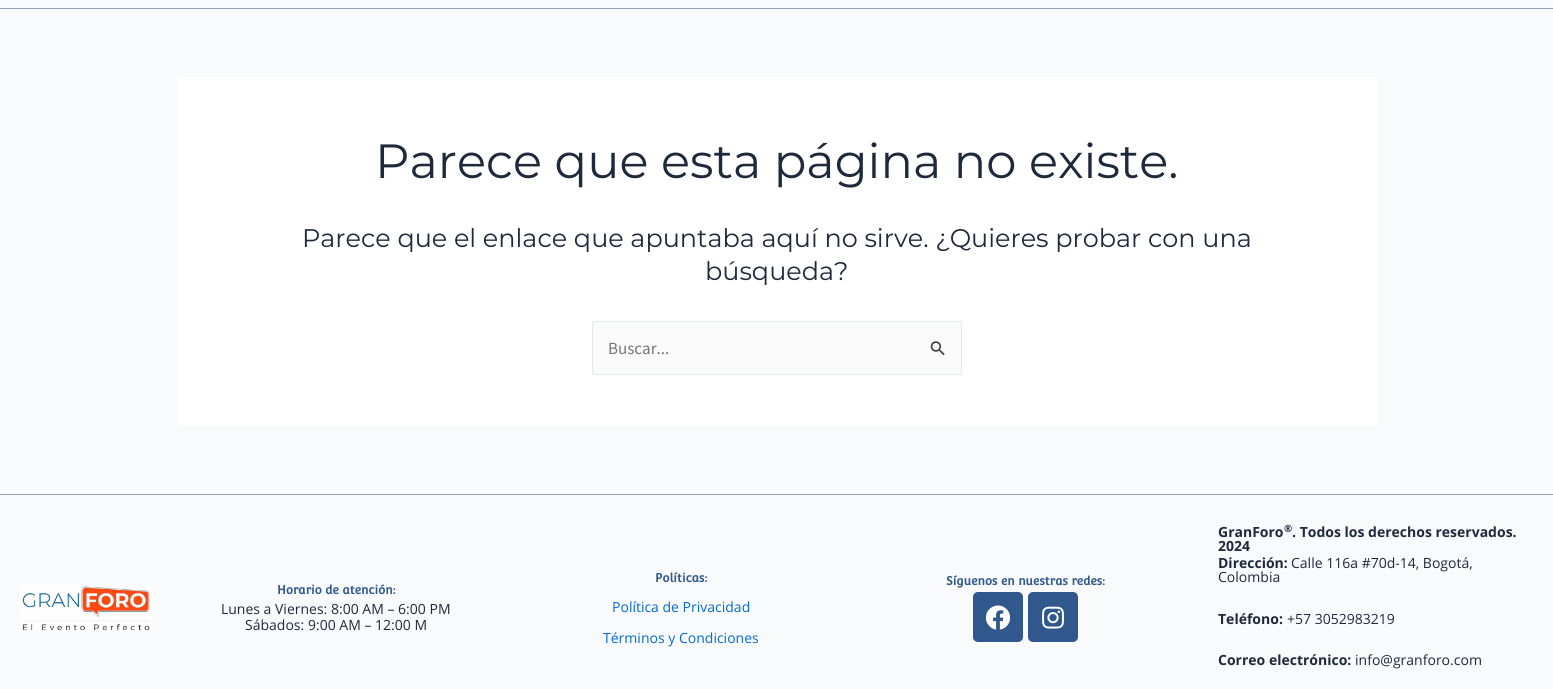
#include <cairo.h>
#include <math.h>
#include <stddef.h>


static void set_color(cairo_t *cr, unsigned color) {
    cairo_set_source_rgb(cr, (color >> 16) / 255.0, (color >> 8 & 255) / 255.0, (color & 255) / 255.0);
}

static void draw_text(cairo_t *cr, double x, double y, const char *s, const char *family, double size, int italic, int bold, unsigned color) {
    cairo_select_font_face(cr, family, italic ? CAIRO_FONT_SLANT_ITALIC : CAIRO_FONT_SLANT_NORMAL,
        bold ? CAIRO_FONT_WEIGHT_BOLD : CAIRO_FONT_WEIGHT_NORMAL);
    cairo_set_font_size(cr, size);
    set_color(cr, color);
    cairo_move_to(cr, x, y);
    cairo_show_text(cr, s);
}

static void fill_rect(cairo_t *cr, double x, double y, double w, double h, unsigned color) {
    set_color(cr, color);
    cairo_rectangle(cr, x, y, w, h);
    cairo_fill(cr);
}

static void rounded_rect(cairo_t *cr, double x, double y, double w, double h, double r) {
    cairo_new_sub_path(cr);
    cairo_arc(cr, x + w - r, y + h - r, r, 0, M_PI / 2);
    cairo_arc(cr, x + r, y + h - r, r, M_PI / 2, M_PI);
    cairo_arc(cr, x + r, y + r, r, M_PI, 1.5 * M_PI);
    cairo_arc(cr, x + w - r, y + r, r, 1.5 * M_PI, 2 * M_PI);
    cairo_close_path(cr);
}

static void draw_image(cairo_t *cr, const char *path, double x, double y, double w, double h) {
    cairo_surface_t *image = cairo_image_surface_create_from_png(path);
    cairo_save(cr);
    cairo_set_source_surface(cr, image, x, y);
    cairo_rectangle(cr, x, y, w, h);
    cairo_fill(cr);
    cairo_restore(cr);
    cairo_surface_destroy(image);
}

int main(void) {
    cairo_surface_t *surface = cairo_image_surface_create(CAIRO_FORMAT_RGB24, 1553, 689);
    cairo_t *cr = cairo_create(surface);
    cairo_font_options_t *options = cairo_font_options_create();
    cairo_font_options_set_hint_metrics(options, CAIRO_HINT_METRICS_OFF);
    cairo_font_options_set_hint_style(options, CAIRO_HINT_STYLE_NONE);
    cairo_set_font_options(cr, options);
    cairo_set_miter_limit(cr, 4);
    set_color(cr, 0xF9FAFB);
    cairo_paint(cr);
    fill_rect(cr, 0, 8, 1553, 1, 0x94A3B8);
    fill_rect(cr, 177, 77, 1200, 349, 0xFFFFFF);
    draw_text(cr, 375, 178, "Parece que esta página no existe.", "Montserrat", 48, 0, 0, 0x1E293B);
    draw_text(cr, 302, 247, "Parece que el enlace que apuntaba aquí no sirve. ¿Quieres probar con una", "Montserrat", 25.5, 0, 0, 0x1E293B);
    draw_text(cr, 705, 280, "búsqueda?", "Montserrat", 25.5, 0, 0, 0x1E293B);
    set_color(cr, 0xFAFAFA);
    rounded_rect(cr, 592.5, 321.5, 369, 53, 1.5);
    cairo_fill_preserve(cr);
    set_color(cr, 0xE2E8F0);
    cairo_set_line_width(cr, 1);
    cairo_stroke(cr);
    draw_text(cr, 608, 354, "Buscar...", "Source Sans Pro", 17, 0, 0, 0x757575);
    draw_image(cr, "assets/img1.png", 930, 341, 15, 15);
    fill_rect(cr, 0, 494, 1553, 1, 0x94A3B8);
    draw_image(cr, "assets/img2.png", 20, 585, 133, 47);
    draw_text(cr, 655, 582, "Políticas:", "Convergence", 12, 0, 1, 0x30588D);
    draw_text(cr, 612, 612, "Política de Privacidad", "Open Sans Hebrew", 14, 0, 0, 0x046BD2);
    draw_text(cr, 603, 643, "Términos y Condiciones", "Open Sans Hebrew", 14, 0, 0, 0x046BD2);
    draw_text(cr, 946, 585, "Síguenos en nuestras redes:", "Convergence", 12, 0, 1, 0x30588D);
    rounded_rect(cr, 973, 592, 50, 50, 5);
    cairo_fill(cr);
    draw_image(cr, "assets/img3.png", 985, 605, 26, 25);
    rounded_rect(cr, 1028, 592, 50, 50, 5);
    cairo_fill(cr);
    draw_image(cr, "assets/img4.png", 1042, 606, 22, 23);
    draw_text(cr, 1218, 537, "GranForo", "Open Sans Hebrew", 14, 0, 1, 0x1E293B);
    draw_text(cr, 1284, 532, "®", "Open Sans Hebrew", 10, 0, 1, 0x1E293B);
    draw_text(cr, 1292, 537, ". Todos los derechos reservados.", "Open Sans Hebrew", 14, 0, 1, 0x1E293B);
    draw_text(cr, 1218, 551, "2024", "Open Sans Hebrew", 14, 0, 1, 0x1E293B);
    draw_text(cr, 1218, 568, "Dirección:", "Open Sans Hebrew", 14, 0, 1, 0x1E293B);
    draw_text(cr, 1291, 568, "Calle 116a #70d-14, Bogotá,", "Open Sans Hebrew", 14, 0, 0, 0x1E293B);
    draw_text(cr, 1218, 582, "Colombia", "Open Sans Hebrew", 14, 0, 0, 0x1E293B);
    draw_text(cr, 1218, 624, "Teléfono:", "Open Sans Hebrew", 14, 0, 1, 0x1E293B);
    draw_text(cr, 1287, 624, "+57 3052983219", "Open Sans Hebrew", 14, 0, 0, 0x1E293B);
    draw_text(cr, 1218, 665, "Correo electrónico:", "Open Sans Hebrew", 14, 0, 1, 0x1E293B);
    draw_text(cr, 1355, 665, "info@granforo.com", "Open Sans Hebrew", 14, 0, 0, 0x1E293B);
    draw_text(cr, 277, 594, "Horario de atención:", "Convergence", 12, 0, 1, 0x30588D);
    draw_text(cr, 221, 614, "Lunes a Viernes: 8:00 AM – 6:00 PM", "Open Sans Hebrew", 14, 0, 0, 0x1E293B);
    draw_text(cr, 245, 630, "Sábados: 9:00 AM – 12:00 M", "Open Sans Hebrew", 14, 0, 0, 0x1E293B);
    cairo_surface_write_to_png(surface, "output.png");
    cairo_font_options_destroy(options);
    cairo_destroy(cr);
    cairo_surface_destroy(surface);
    return 0;
}
